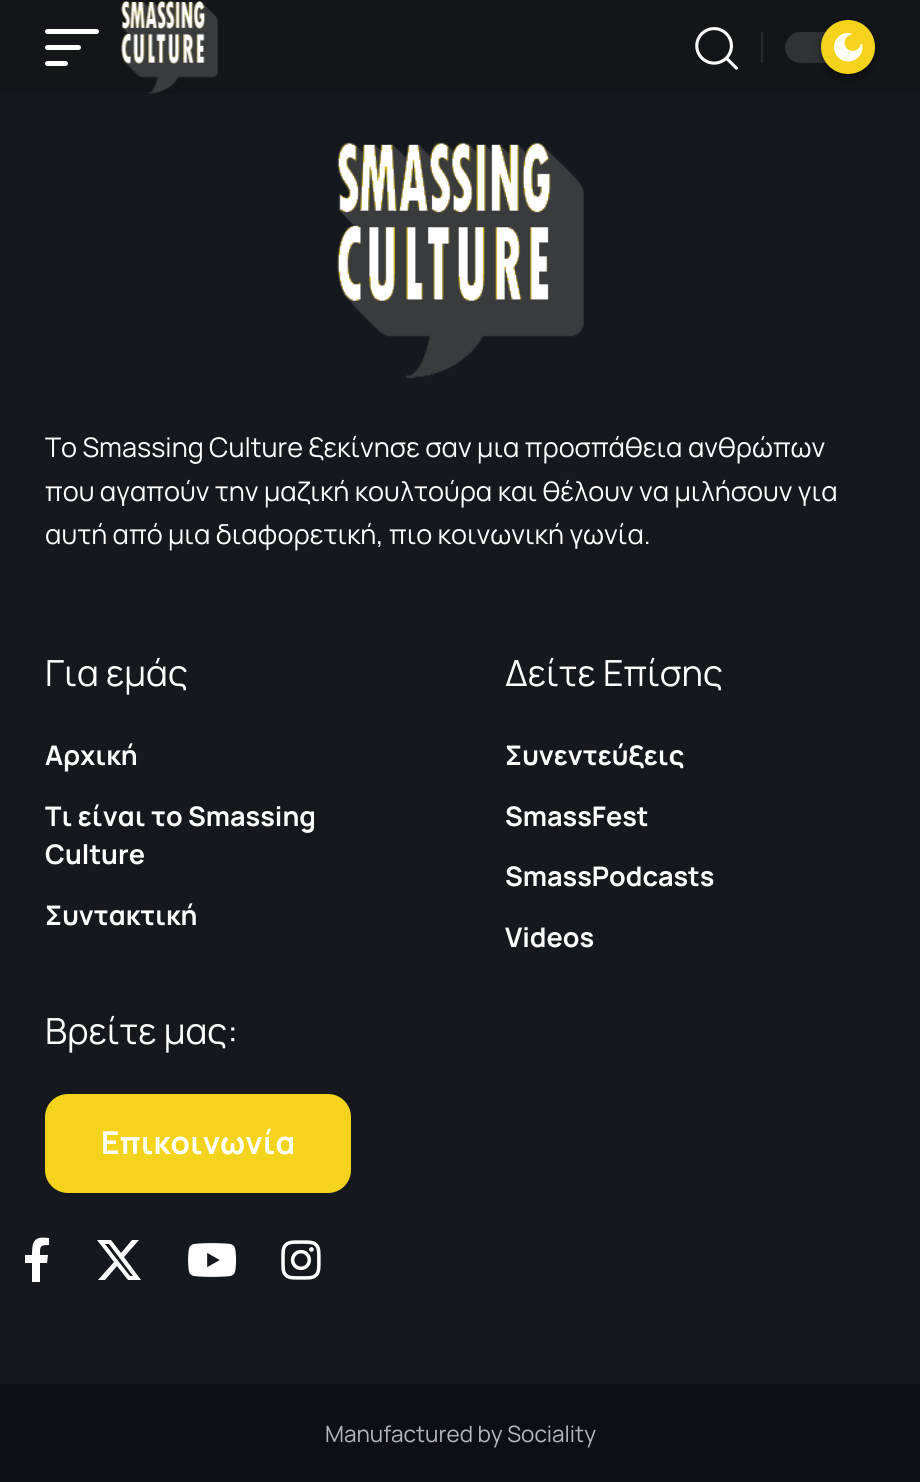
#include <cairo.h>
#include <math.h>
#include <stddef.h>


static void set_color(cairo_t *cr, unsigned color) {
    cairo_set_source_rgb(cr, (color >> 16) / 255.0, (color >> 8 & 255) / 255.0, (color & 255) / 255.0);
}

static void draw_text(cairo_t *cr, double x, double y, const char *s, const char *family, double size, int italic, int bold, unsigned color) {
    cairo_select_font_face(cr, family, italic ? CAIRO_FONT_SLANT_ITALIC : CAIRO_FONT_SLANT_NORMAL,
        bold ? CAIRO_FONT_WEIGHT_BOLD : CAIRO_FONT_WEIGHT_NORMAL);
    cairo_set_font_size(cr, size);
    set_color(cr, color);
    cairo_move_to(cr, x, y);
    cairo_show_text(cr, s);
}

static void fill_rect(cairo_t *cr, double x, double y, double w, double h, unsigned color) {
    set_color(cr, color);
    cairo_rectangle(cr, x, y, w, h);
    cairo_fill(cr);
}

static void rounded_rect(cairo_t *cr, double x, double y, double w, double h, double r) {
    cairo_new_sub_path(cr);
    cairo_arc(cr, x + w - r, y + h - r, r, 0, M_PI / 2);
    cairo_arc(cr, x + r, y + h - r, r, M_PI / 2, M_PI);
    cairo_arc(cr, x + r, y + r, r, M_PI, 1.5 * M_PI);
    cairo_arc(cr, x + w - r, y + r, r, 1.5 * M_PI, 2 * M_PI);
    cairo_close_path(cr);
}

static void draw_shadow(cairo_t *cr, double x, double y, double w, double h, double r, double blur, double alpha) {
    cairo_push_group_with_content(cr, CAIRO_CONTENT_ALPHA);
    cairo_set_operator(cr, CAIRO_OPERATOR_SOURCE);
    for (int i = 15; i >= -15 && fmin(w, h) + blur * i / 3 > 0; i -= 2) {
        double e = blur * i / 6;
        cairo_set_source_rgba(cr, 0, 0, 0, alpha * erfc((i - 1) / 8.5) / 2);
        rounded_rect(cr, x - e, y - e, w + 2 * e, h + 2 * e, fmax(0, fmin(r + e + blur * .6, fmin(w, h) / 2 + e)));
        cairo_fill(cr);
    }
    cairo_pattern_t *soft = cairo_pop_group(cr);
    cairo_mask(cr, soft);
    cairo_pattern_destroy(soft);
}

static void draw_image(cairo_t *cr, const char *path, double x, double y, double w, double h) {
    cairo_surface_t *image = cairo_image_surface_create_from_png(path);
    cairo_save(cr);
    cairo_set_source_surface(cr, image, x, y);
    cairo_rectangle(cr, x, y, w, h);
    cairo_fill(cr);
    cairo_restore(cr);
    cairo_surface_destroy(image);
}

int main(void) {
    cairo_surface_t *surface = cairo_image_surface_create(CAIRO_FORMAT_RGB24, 920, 1482);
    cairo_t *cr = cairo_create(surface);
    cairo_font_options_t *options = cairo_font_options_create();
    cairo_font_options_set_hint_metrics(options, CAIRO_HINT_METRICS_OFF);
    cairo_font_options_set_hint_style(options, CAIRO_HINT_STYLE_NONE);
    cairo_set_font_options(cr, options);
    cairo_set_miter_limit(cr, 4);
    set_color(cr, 0x0C1015);
    cairo_paint(cr);
    fill_rect(cr, 0, 0, 920, 95, 0x131518);
    set_color(cr, 0xFFFFFF);
    rounded_rect(cr, 45, 29, 54, 5, 2.5);
    cairo_fill(cr);
    rounded_rect(cr, 45, 45, 36, 5, 2.5);
    cairo_fill(cr);
    rounded_rect(cr, 45, 61, 23, 5, 2.5);
    cairo_fill(cr);
    draw_image(cr, "assets/img1.png", 121, 1, 97, 93);
    draw_image(cr, "assets/img2.png", 695, 27, 43, 43);
    fill_rect(cr, 761, 32, 2, 31, 0x26282B);
    set_color(cr, 0x303234);
    rounded_rect(cr, 785, 32, 90, 31, 15.5);
    cairo_fill(cr);
    set_color(cr, 0x000000);
    draw_shadow(cr, 821, 23, 54, 54, 27, 4.5, 0.4);
    set_color(cr, 0xF3D31B);
    cairo_arc(cr, 848, 47, 27, 0, 2 * M_PI);
    cairo_fill(cr);
    draw_image(cr, "assets/img3.png", 833, 33, 30, 29);
    fill_rect(cr, 0, 95, 920, 1289, 0x15181D);
    draw_image(cr, "assets/img4.png", 337, 142, 247, 237);
    draw_text(cr, 45, 457, "To Smassing Culture ξεκίνησε σαν μια προσπάθεια ανθρώπων", "Manrope", 27, 0, 0, 0xFFFFFF);
    draw_text(cr, 45, 501, "που αγαπούν την μαζική κουλτούρα και θέλουν να μιλήσουν για", "Manrope", 27, 0, 0, 0xFFFFFF);
    draw_text(cr, 45, 544, "αυτή από μια διαφορετική, πιο κοινωνική γωνία.", "Manrope", 27, 0, 0, 0xFFFFFF);
    draw_text(cr, 45, 686, "Για εμάς", "Manrope", 36, 0, 0, 0xFFFFFF);
    draw_text(cr, 45, 765, "Αρχική", "Manrope", 27, 0, 1, 0xFFFFFF);
    draw_text(cr, 45, 826, "Τι είναι το Smassing", "Manrope", 27, 0, 1, 0xFFFFFF);
    draw_text(cr, 45, 864, "Culture", "Manrope", 27, 0, 1, 0xFFFFFF);
    draw_text(cr, 45, 925, "Συντακτική", "Manrope", 27, 0, 1, 0xFFFFFF);
    draw_text(cr, 505, 686, "Δείτε Επίσης", "Manrope", 36, 0, 0, 0xFFFFFF);
    draw_text(cr, 505, 765, "Συνεντεύξεις", "Manrope", 27, 0, 1, 0xFFFFFF);
    draw_text(cr, 505, 826, "SmassFest", "Manrope", 27, 0, 1, 0xFFFFFF);
    draw_text(cr, 505, 886, "SmassPodcasts", "Manrope", 27, 0, 1, 0xFFFFFF);
    draw_text(cr, 505, 947, "Videos", "Manrope", 27, 0, 1, 0xFFFFFF);
    draw_text(cr, 45, 1044, "Βρείτε μας:", "Manrope", 36, 0, 0, 0xFFFFFF);
    set_color(cr, 0xF3D31B);
    rounded_rect(cr, 45, 1094, 306, 99, 23);
    cairo_fill(cr);
    draw_text(cr, 101, 1154, "Επικοινωνία", "Manrope", 31.5, 0, 1, 0xFFFFFF);
    cairo_new_path(cr);
    cairo_move_to(cr, 47, 1263);
    cairo_line_to(cr, 48, 1255);
    cairo_line_to(cr, 40, 1255);
    cairo_curve_to(cr, 40, 1246, 40, 1245, 49, 1245);
    cairo_line_to(cr, 49, 1238);
    cairo_curve_to(cr, 34, 1236, 32, 1241, 32, 1255);
    cairo_line_to(cr, 25, 1255);
    cairo_line_to(cr, 25, 1263);
    cairo_line_to(cr, 32, 1263);
    cairo_line_to(cr, 32, 1282);
    cairo_line_to(cr, 40, 1282);
    cairo_line_to(cr, 40, 1263);
    cairo_close_path(cr);
    cairo_fill(cr);
    cairo_new_path(cr);
    cairo_move_to(cr, 132, 1240);
    cairo_line_to(cr, 139, 1240);
    cairo_line_to(cr, 124, 1257);
    cairo_line_to(cr, 141, 1280);
    cairo_line_to(cr, 128, 1280);
    cairo_line_to(cr, 117, 1266);
    cairo_line_to(cr, 105, 1280);
    cairo_line_to(cr, 98, 1280);
    cairo_line_to(cr, 114, 1262);
    cairo_line_to(cr, 97, 1240);
    cairo_line_to(cr, 111, 1240);
    cairo_line_to(cr, 121, 1253);
    cairo_close_path(cr);
    cairo_move_to(cr, 130, 1276);
    cairo_line_to(cr, 133, 1276);
    cairo_line_to(cr, 109, 1244);
    cairo_line_to(cr, 105, 1244);
    cairo_close_path(cr);
    cairo_fill(cr);
    draw_image(cr, "assets/img5.png", 188, 1243, 49, 34);
    draw_image(cr, "assets/img6.png", 281, 1240, 40, 40);
    draw_text(cr, 325, 1442, "Manufactured by Sociality", "Manrope", 22.5, 0, 0, 0xB6B7B9);
    cairo_surface_write_to_png(surface, "output.png");
    cairo_font_options_destroy(options);
    cairo_destroy(cr);
    cairo_surface_destroy(surface);
    return 0;
}
